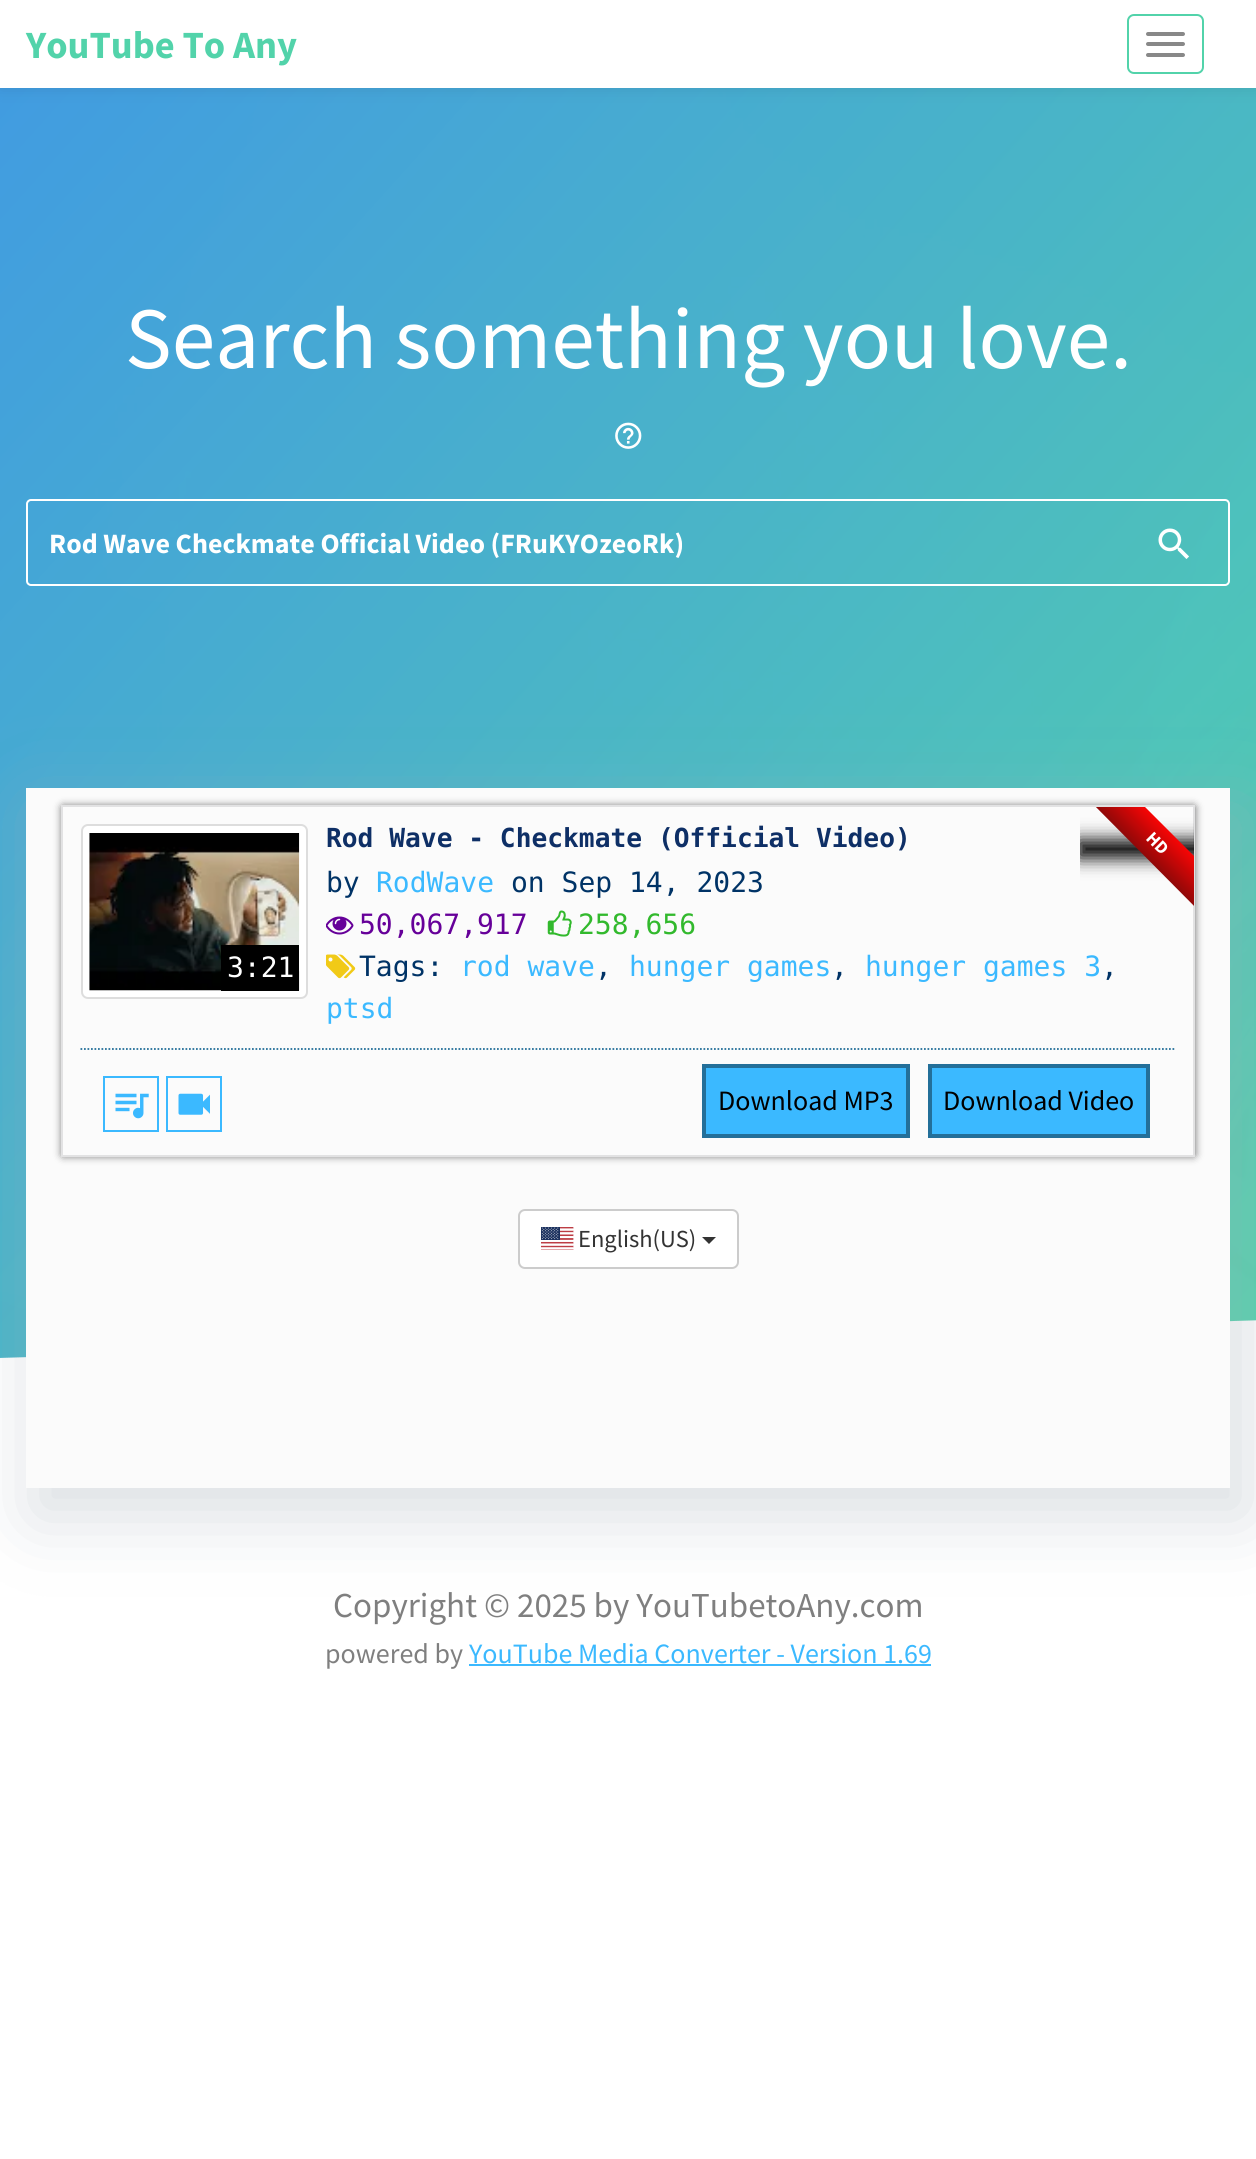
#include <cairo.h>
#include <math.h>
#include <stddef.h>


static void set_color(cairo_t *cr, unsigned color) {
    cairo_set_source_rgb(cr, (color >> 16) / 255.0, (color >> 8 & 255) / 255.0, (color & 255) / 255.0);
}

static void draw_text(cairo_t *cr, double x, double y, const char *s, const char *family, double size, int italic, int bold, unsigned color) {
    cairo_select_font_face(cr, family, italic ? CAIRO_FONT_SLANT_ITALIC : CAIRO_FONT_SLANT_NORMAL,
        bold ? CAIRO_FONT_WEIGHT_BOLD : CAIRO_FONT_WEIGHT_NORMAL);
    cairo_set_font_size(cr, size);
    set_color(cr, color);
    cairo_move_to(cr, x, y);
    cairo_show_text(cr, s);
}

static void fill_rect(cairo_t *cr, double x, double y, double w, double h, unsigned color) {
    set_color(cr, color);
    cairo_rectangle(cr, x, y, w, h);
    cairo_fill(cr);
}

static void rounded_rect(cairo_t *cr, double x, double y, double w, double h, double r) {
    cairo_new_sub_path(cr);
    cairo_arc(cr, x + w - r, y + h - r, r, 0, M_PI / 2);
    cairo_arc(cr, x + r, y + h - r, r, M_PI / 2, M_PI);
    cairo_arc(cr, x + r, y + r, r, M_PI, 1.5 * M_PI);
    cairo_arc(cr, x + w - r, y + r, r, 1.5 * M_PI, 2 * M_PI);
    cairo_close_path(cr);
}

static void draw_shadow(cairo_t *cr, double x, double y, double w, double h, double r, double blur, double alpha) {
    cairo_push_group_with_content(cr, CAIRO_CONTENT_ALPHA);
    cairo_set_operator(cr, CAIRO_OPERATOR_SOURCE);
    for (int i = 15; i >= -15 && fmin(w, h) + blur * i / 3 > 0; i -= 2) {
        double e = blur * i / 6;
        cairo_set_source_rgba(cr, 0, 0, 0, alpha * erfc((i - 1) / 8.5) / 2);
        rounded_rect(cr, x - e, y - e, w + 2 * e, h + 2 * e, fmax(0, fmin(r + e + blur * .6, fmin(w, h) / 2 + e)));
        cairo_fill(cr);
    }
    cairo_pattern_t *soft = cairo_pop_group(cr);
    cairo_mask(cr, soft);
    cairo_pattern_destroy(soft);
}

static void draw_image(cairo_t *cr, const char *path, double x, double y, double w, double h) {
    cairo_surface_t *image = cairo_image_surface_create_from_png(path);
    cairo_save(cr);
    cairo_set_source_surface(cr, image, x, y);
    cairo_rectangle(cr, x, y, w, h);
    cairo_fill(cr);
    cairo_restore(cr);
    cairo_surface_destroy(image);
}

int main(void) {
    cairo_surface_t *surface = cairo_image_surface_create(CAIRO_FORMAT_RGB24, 1256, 2159);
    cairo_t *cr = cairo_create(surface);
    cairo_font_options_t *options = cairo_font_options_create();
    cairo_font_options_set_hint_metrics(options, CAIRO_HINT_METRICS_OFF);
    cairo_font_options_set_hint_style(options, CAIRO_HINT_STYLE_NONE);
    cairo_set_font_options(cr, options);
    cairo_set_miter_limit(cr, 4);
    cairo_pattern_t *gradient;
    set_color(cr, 0xFFFFFF);
    cairo_paint(cr);
    draw_image(cr, "assets/img1.png", 0, 88, 1256, 1270);
    set_color(cr, 0x000000);
    draw_shadow(cr, 0, 0, 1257, 88, 0, 8, 0.1);
    fill_rect(cr, 0, 0, 1256, 88, 0xFFFFFF);
    draw_text(cr, 26, 58, "YouTube To Any", "Source Sans Pro", 38.5, 0, 1, 0x52D3AA);
    rounded_rect(cr, 1128, 15, 75, 58, 6);
    cairo_stroke(cr);
    set_color(cr, 0x888888);
    rounded_rect(cr, 1146, 32, 39, 4, 2);
    cairo_fill(cr);
    rounded_rect(cr, 1146, 42, 39, 4, 2);
    cairo_fill(cr);
    rounded_rect(cr, 1146, 53, 39, 4, 2);
    cairo_fill(cr);
    draw_text(cr, 125, 368, "Search something you love.", "Source Sans Pro", 87.5, 0, 0, 0xFFFFFF);
    draw_image(cr, "assets/img2.png", 615, 422, 27, 27);
    rounded_rect(cr, 27, 500, 1202, 85, 4);
    cairo_stroke(cr);
    draw_text(cr, 49, 553, "Rod Wave Checkmate Official Video (FRuKYOzeoRk)", "Source Sans Pro", 28, 0, 1, 0xFFFFFF);
    draw_image(cr, "assets/img3.png", 1158, 528, 31, 31);
    cairo_save(cr);
    cairo_rectangle(cr, 0, 0, 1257, 1400);
    cairo_clip(cr);
    cairo_new_path(cr);
    cairo_move_to(cr, -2, 1358);
    cairo_line_to(cr, 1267, 1320);
    cairo_line_to(cr, 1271, 1442);
    cairo_line_to(cr, 2, 1480);
    cairo_close_path(cr);
    cairo_fill(cr);
    cairo_restore(cr);
    set_color(cr, 0xA3AEB8);
    draw_shadow(cr, 33, 807, 1215, 710, 0, 37, 0.4);
    fill_rect(cr, 26, 788, 1204, 700, 0xFBFBFB);
    cairo_save(cr);
    cairo_set_fill_rule(cr, CAIRO_FILL_RULE_EVEN_ODD);
    cairo_new_path(cr);
    cairo_move_to(cr, 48, 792);
    cairo_line_to(cr, 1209, 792);
    cairo_line_to(cr, 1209, 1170);
    cairo_line_to(cr, 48, 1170);
    cairo_close_path(cr);
    cairo_move_to(cr, 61, 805);
    cairo_line_to(cr, 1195, 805);
    cairo_line_to(cr, 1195, 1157);
    cairo_line_to(cr, 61, 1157);
    cairo_close_path(cr);
    cairo_clip(cr);
    set_color(cr, 0x000000);
    draw_shadow(cr, 63, 807, 1131, 348, 0, 4.5, 0.75);
    cairo_restore(cr);
    cairo_rectangle(cr, 62, 806, 1132, 350);
    set_color(cr, 0xE2E2E3);
    cairo_stroke(cr);
    set_color(cr, 0xFFFFFF);
    rounded_rect(cr, 82, 825, 225, 173, 6);
    cairo_fill_preserve(cr);
    set_color(cr, 0xDDDDDD);
    cairo_stroke(cr);
    draw_image(cr, "assets/img4.png", 89, 833, 211, 158);
    fill_rect(cr, 221, 945, 78, 46, 0x000000);
    draw_text(cr, 227, 977, "3:21", "DejaVu Sans Mono", 28, 0, 0, 0xFFFFFF);
    draw_text(cr, 326, 847, "Rod Wave - Checkmate (Official Video)", "DejaVu Sans Mono", 26.25, 0, 1, 0x0E2F66);
    cairo_save(cr);
    cairo_rectangle(cr, 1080, 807, 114, 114);
    cairo_clip(cr);
    set_color(cr, 0x000000);
    draw_shadow(cr, 1078, 840, 158, 18, 0, 9, 1);
    cairo_restore(cr);
    cairo_save(cr);
    cairo_rectangle(cr, 1080, 807, 114, 114);
    cairo_clip(cr);
    gradient = cairo_pattern_create_linear(1169, 831, 1144, 856);
    cairo_pattern_add_color_stop_rgba(gradient, 0, 0.969, 0.02, 0.02, 1);
    cairo_pattern_add_color_stop_rgba(gradient, 1, 0.561, 0.031, 0.031, 1);
    cairo_set_source(cr, gradient);
    cairo_pattern_destroy(gradient);
    cairo_new_path(cr);
    cairo_move_to(cr, 1107, 769);
    cairo_line_to(cr, 1231, 893);
    cairo_line_to(cr, 1206, 918);
    cairo_line_to(cr, 1083, 794);
    cairo_close_path(cr);
    cairo_fill(cr);
    cairo_restore(cr);
    cairo_save(cr);
    cairo_translate(cr, 1145, 839);
    cairo_rotate(cr, 45 * M_PI / 180);
    draw_text(cr, 0, 0, "HD", "Source Sans Pro", 18, 0, 1, 0xFFFFFF);
    cairo_restore(cr);
    draw_text(cr, 326, 892, "by", "DejaVu Sans Mono", 28, 0, 0, 0x003366);
    draw_text(cr, 376, 892, "RodWave", "DejaVu Sans Mono", 28, 0, 0, 0x3BB9FF);
    draw_text(cr, 511, 892, "on Sep 14, 2023", "DejaVu Sans Mono", 28, 0, 0, 0x003366);
    draw_image(cr, "assets/img5.png", 326, 916, 28, 19);
    draw_text(cr, 359, 934, "50,067,917", "DejaVu Sans Mono", 28, 0, 0, 0x660099);
    draw_image(cr, "assets/img6.png", 547, 910, 25, 27);
    draw_text(cr, 578, 934, "258,656", "DejaVu Sans Mono", 28, 0, 0, 0x32B92D);
    draw_image(cr, "assets/img7.png", 326, 954, 30, 25);
    draw_text(cr, 359, 976, "Tags:", "DejaVu Sans Mono", 28, 0, 0, 0x003366);
    draw_text(cr, 460, 976, "rod wave", "DejaVu Sans Mono", 28, 0, 0, 0x3BB9FF);
    draw_text(cr, 595, 976, ",", "DejaVu Sans Mono", 28, 0, 0, 0x003366);
    draw_text(cr, 629, 976, "hunger games", "DejaVu Sans Mono", 28, 0, 0, 0x3BB9FF);
    draw_text(cr, 831, 976, ",", "DejaVu Sans Mono", 28, 0, 0, 0x003366);
    draw_text(cr, 865, 976, "hunger games 3", "DejaVu Sans Mono", 28, 0, 0, 0x3BB9FF);
    draw_text(cr, 1101, 976, ",", "DejaVu Sans Mono", 28, 0, 0, 0x003366);
    draw_text(cr, 326, 1018, "ptsd", "DejaVu Sans Mono", 28, 0, 0, 0x3BB9FF);
    cairo_new_path(cr);
    cairo_move_to(cr, 80.5, 1049);
    cairo_line_to(cr, 1176, 1049);
    set_color(cr, 0x236F99);
    cairo_set_line_width(cr, 1.8);
    cairo_set_dash(cr, (double[]){1.75, 1.75}, 2, 0);
    cairo_stroke(cr);
    cairo_rectangle(cr, 104, 1077, 54, 54);
    set_color(cr, 0x3BB9FF);
    cairo_set_line_width(cr, 2);
    cairo_set_dash(cr, NULL, 0, 0);
    cairo_stroke(cr);
    draw_image(cr, "assets/img8.png", 115, 1093, 34, 26);
    cairo_rectangle(cr, 167, 1077, 54, 54);
    cairo_stroke(cr);
    draw_image(cr, "assets/img9.png", 178, 1093, 32, 22);
    cairo_rectangle(cr, 704, 1066, 204, 70);
    cairo_fill_preserve(cr);
    set_color(cr, 0x236F99);
    cairo_set_line_width(cr, 4);
    cairo_stroke(cr);
    draw_text(cr, 718, 1110, "Download MP3", "Source Sans Pro", 28, 0, 0, 0x000000);
    set_color(cr, 0x3BB9FF);
    cairo_rectangle(cr, 930, 1066, 218, 70);
    cairo_fill_preserve(cr);
    set_color(cr, 0x236F99);
    cairo_stroke(cr);
    draw_text(cr, 943, 1110, "Download Video", "Source Sans Pro", 28, 0, 0, 0x000000);
    set_color(cr, 0xFFFFFF);
    rounded_rect(cr, 519, 1210, 219, 58, 6);
    cairo_fill_preserve(cr);
    set_color(cr, 0xCCCCCC);
    cairo_set_line_width(cr, 2);
    cairo_stroke(cr);
    draw_image(cr, "assets/img10.png", 541, 1227, 33, 23);
    draw_text(cr, 578, 1247, "English(US)", "Source Sans Pro", 24.5, 0, 0, 0x333333);
    cairo_new_path(cr);
    cairo_move_to(cr, 702, 1237);
    cairo_line_to(cr, 716, 1237);
    cairo_line_to(cr, 709, 1244);
    cairo_close_path(cr);
    cairo_fill(cr);
    draw_text(cr, 333, 1617, "Copyright © 2025 by YouTubetoAny.com", "Source Sans Pro", 35, 0, 0, 0x7F7F7F);
    draw_text(cr, 325, 1663, "powered by", "Source Sans Pro", 28, 0, 0, 0x7F7F7F);
    draw_text(cr, 469, 1663, "YouTube Media Converter - Version 1.69", "Source Sans Pro", 28, 0, 0, 0x3BB9FF);
    fill_rect(cr, 469, 1664, 462, 2, 0x3BB9FF);
    cairo_surface_write_to_png(surface, "output.png");
    cairo_font_options_destroy(options);
    cairo_destroy(cr);
    cairo_surface_destroy(surface);
    return 0;
}
